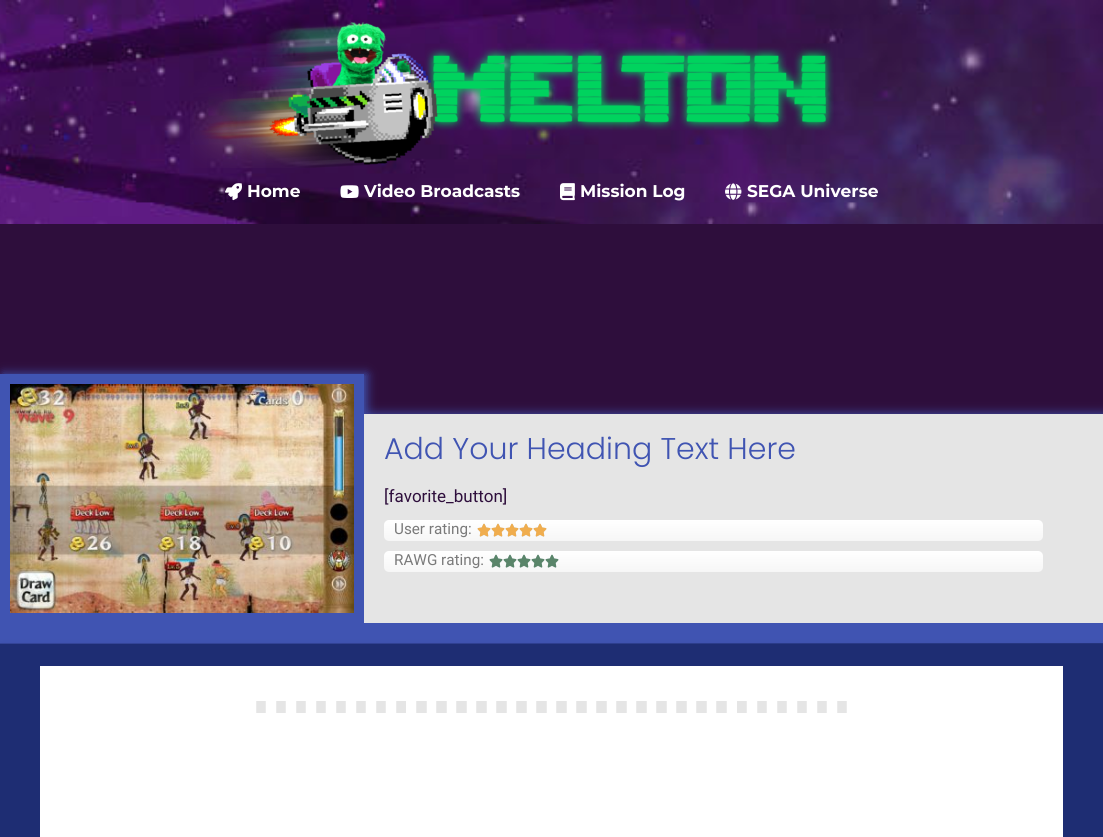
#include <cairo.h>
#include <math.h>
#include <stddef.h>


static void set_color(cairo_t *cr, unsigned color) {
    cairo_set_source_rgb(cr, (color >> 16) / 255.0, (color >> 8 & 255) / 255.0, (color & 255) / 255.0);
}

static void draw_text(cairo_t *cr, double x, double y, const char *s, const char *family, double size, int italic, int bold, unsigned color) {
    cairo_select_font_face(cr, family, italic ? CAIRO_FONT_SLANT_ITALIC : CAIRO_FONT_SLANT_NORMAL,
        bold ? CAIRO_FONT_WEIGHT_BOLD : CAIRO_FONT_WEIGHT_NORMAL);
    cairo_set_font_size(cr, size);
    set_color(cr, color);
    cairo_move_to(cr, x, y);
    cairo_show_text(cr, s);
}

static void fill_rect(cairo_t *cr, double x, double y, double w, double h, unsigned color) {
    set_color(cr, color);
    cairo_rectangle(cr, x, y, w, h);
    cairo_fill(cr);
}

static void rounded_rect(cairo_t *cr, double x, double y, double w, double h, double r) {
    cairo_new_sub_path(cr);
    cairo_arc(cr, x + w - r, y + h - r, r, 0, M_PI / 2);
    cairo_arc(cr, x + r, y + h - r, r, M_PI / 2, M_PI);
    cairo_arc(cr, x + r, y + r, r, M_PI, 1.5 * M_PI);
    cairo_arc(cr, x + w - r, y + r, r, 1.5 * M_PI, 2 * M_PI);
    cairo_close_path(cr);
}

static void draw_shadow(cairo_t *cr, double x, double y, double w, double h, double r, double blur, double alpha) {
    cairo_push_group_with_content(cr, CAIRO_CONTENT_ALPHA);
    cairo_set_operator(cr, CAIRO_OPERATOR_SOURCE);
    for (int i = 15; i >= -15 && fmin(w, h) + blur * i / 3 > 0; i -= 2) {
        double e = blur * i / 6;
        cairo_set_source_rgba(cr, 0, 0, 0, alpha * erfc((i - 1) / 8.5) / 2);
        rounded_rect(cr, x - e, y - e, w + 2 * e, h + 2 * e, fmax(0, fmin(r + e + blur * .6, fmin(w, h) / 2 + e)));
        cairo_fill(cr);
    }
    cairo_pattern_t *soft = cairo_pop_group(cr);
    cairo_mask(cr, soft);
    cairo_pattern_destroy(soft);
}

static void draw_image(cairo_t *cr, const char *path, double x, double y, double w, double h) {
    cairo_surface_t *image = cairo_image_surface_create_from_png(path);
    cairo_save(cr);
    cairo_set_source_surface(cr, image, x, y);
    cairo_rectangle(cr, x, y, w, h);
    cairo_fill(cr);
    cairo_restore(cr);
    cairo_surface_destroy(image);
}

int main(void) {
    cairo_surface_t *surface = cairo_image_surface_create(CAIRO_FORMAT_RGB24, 1103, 837);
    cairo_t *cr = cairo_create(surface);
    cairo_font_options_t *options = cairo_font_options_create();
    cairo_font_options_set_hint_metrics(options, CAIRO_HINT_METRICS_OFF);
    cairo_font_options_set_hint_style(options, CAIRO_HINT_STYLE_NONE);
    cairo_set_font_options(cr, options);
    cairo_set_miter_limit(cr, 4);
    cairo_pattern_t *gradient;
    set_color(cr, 0x2E0E3C);
    cairo_paint(cr);
    draw_image(cr, "assets/img1.png", 0, 0, 1103, 224);
    draw_image(cr, "assets/img2.png", 190, 21, 644, 147);
    draw_image(cr, "assets/img3.png", 225, 183, 17, 18);
    draw_text(cr, 247, 197, "Home", "Montserrat", 17, 0, 1, 0xFFFFFF);
    draw_image(cr, "assets/img4.png", 340, 185, 19, 13);
    draw_text(cr, 364, 197, "Video Broadcasts", "Montserrat", 17, 0, 1, 0xFFFFFF);
    draw_image(cr, "assets/img5.png", 560, 183, 15, 18);
    draw_text(cr, 580, 197, "Mission Log", "Montserrat", 17, 0, 1, 0xFFFFFF);
    draw_image(cr, "assets/img6.png", 725, 183, 17, 17);
    draw_text(cr, 747, 197, "SEGA Universe", "Montserrat", 17, 0, 1, 0xFFFFFF);
    set_color(cr, 0x4054B2);
    draw_shadow(cr, 3, 374, 364, 249, 0, 5, 1);
    fill_rect(cr, 0, 374, 364, 249, 0x4054B2);
    draw_image(cr, "assets/img7.png", 10, 384, 344, 229);
    set_color(cr, 0x4054B2);
    draw_shadow(cr, 367, 414, 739, 209, 0, 5, 1);
    fill_rect(cr, 364, 414, 739, 209, 0xE5E5E5);
    draw_text(cr, 384, 459, "Add Your Heading Text Here", "Poppins Light", 30, 0, 0, 0x4054B2);
    draw_text(cr, 384, 502, "[favorite_button]", "Roboto", 17, 0, 0, 0x2E0E3C);
    gradient = cairo_pattern_create_linear(714, 520, 714, 541);
    cairo_pattern_add_color_stop_rgba(gradient, 0, 1, 1, 1, 1);
    cairo_pattern_add_color_stop_rgba(gradient, 1, 0.965, 0.965, 0.965, 1);
    cairo_set_source(cr, gradient);
    cairo_pattern_destroy(gradient);
    rounded_rect(cr, 384, 520, 659, 21, 5);
    cairo_fill(cr);
    draw_text(cr, 394, 534, "User rating:", "Roboto", 15.25, 0, 0, 0x7A7A7A);
    draw_image(cr, "assets/img8.png", 477, 523, 14, 14);
    draw_image(cr, "assets/img9.png", 477, 523, 14, 14);
    draw_image(cr, "assets/img8.png", 491, 523, 14, 14);
    draw_image(cr, "assets/img9.png", 491, 523, 14, 14);
    draw_image(cr, "assets/img8.png", 505, 523, 14, 14);
    draw_image(cr, "assets/img9.png", 505, 523, 14, 14);
    draw_image(cr, "assets/img8.png", 519, 523, 14, 14);
    draw_image(cr, "assets/img9.png", 519, 523, 14, 14);
    draw_image(cr, "assets/img8.png", 533, 523, 14, 14);
    draw_image(cr, "assets/img9.png", 533, 523, 14, 14);
    gradient = cairo_pattern_create_linear(714, 551, 714, 572);
    cairo_pattern_add_color_stop_rgba(gradient, 0, 1, 1, 1, 1);
    cairo_pattern_add_color_stop_rgba(gradient, 1, 0.965, 0.965, 0.965, 1);
    cairo_set_source(cr, gradient);
    cairo_pattern_destroy(gradient);
    rounded_rect(cr, 384, 551, 659, 21, 5);
    cairo_fill(cr);
    draw_text(cr, 394, 565, "RAWG rating:", "Roboto", 15.25, 0, 0, 0x7A7A7A);
    draw_image(cr, "assets/img8.png", 489, 554, 14, 14);
    draw_image(cr, "assets/img10.png", 489, 554, 14, 14);
    draw_image(cr, "assets/img8.png", 503, 554, 14, 14);
    draw_image(cr, "assets/img10.png", 503, 554, 14, 14);
    draw_image(cr, "assets/img8.png", 517, 554, 14, 14);
    draw_image(cr, "assets/img10.png", 517, 554, 14, 14);
    draw_image(cr, "assets/img8.png", 531, 554, 14, 14);
    draw_image(cr, "assets/img10.png", 531, 554, 14, 14);
    draw_image(cr, "assets/img8.png", 545, 554, 14, 14);
    draw_image(cr, "assets/img10.png", 545, 554, 14, 14);
    fill_rect(cr, 0, 623, 1103, 20, 0x4054B2);
    gradient = cairo_pattern_create_radial(0, 0, 0, 0, 0, 1);
    cairo_pattern_set_matrix(gradient, &(cairo_matrix_t){1.0 / 1560, 0, 0, 1.0 / 1.4, -1.0 * 0 / 1560, -1.0 * 643 / 1.4});
    cairo_pattern_add_color_stop_rgba(gradient, 0, 0.251, 0.329, 0.698, 1);
    cairo_pattern_add_color_stop_rgba(gradient, 1, 0.118, 0.176, 0.451, 1);
    cairo_set_source(cr, gradient);
    cairo_pattern_destroy(gradient);
    cairo_rectangle(cr, 0, 643, 1103, 1);
    cairo_fill(cr);
    set_color(cr, 0x000000);
    draw_shadow(cr, 0, 650, 1103, 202, 0, 5, 0.29);
    fill_rect(cr, 0, 644, 1103, 193, 0x1E2D73);
    fill_rect(cr, 40, 666, 1023, 171, 0xFFFFFF);
    draw_image(cr, "assets/img11.png", 256, 701, 591, 12);
    cairo_surface_write_to_png(surface, "output.png");
    cairo_font_options_destroy(options);
    cairo_destroy(cr);
    cairo_surface_destroy(surface);
    return 0;
}
